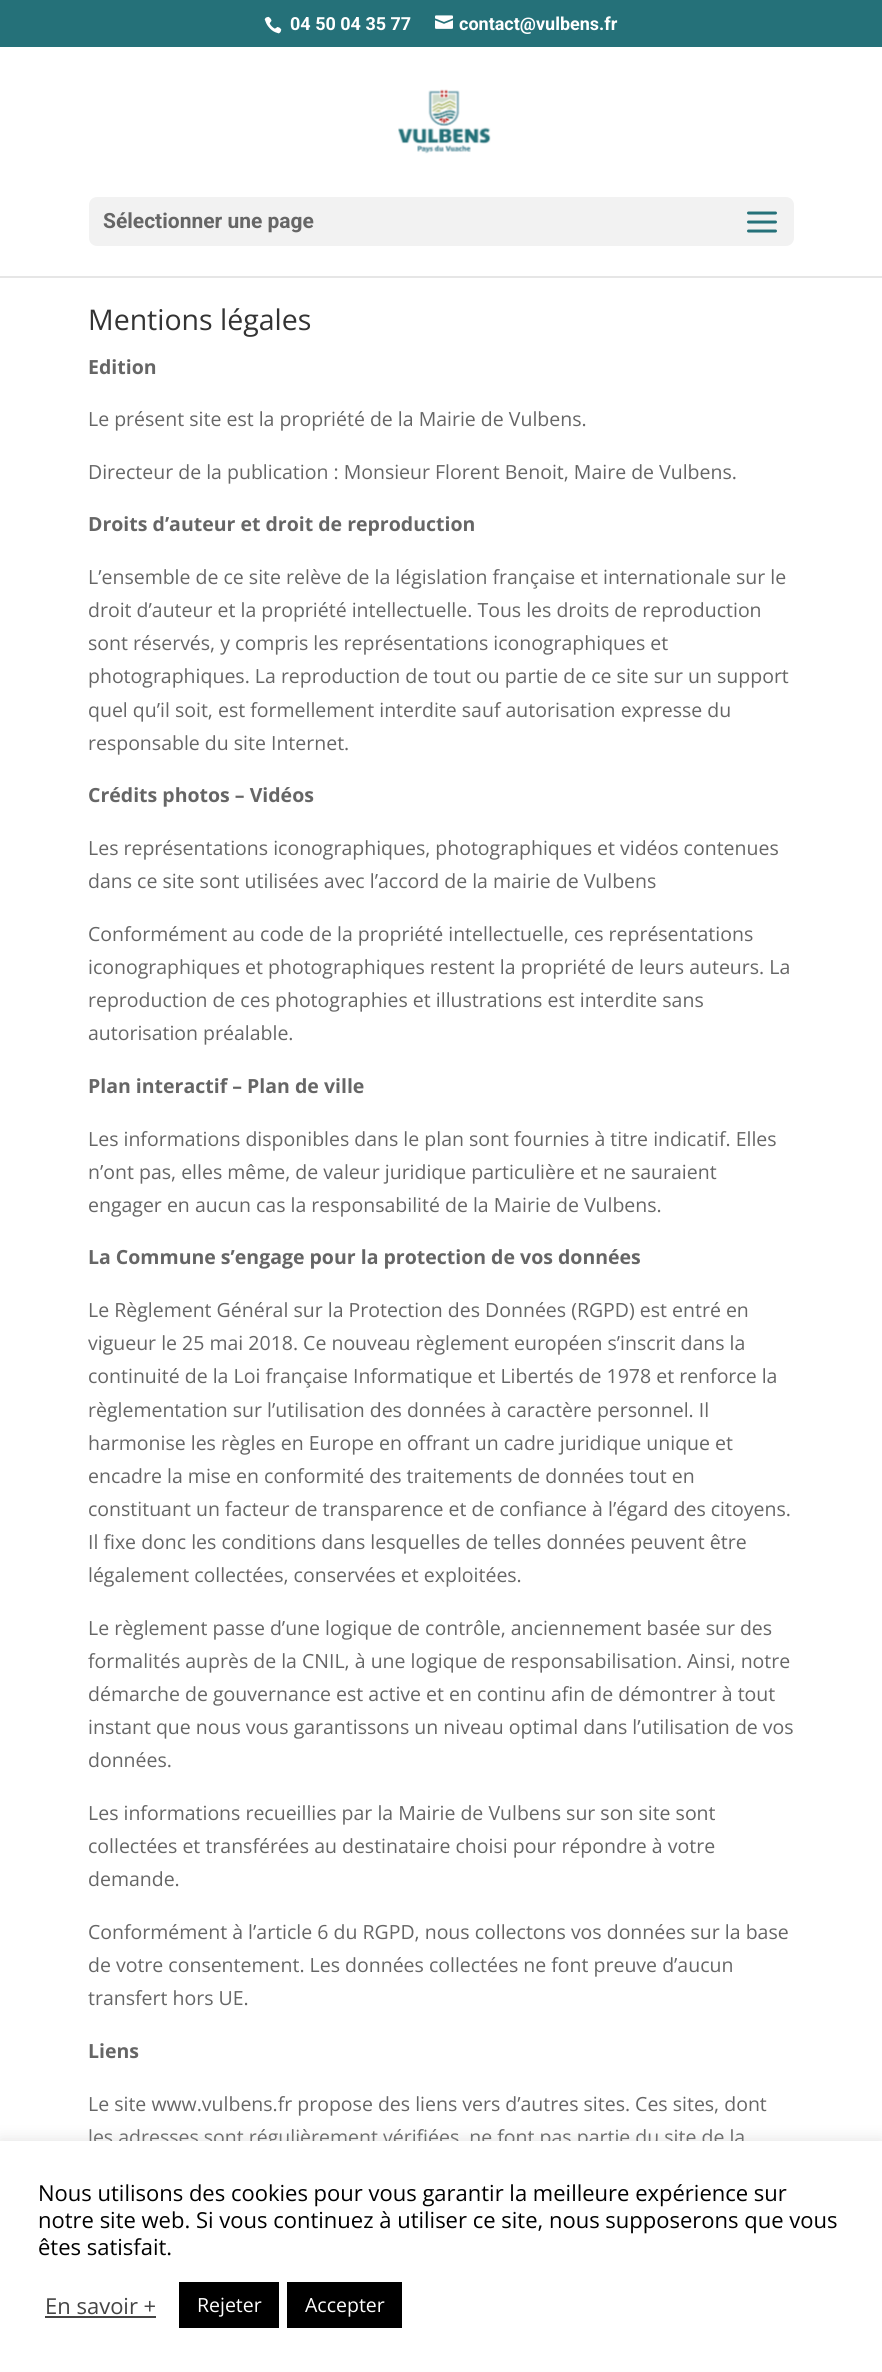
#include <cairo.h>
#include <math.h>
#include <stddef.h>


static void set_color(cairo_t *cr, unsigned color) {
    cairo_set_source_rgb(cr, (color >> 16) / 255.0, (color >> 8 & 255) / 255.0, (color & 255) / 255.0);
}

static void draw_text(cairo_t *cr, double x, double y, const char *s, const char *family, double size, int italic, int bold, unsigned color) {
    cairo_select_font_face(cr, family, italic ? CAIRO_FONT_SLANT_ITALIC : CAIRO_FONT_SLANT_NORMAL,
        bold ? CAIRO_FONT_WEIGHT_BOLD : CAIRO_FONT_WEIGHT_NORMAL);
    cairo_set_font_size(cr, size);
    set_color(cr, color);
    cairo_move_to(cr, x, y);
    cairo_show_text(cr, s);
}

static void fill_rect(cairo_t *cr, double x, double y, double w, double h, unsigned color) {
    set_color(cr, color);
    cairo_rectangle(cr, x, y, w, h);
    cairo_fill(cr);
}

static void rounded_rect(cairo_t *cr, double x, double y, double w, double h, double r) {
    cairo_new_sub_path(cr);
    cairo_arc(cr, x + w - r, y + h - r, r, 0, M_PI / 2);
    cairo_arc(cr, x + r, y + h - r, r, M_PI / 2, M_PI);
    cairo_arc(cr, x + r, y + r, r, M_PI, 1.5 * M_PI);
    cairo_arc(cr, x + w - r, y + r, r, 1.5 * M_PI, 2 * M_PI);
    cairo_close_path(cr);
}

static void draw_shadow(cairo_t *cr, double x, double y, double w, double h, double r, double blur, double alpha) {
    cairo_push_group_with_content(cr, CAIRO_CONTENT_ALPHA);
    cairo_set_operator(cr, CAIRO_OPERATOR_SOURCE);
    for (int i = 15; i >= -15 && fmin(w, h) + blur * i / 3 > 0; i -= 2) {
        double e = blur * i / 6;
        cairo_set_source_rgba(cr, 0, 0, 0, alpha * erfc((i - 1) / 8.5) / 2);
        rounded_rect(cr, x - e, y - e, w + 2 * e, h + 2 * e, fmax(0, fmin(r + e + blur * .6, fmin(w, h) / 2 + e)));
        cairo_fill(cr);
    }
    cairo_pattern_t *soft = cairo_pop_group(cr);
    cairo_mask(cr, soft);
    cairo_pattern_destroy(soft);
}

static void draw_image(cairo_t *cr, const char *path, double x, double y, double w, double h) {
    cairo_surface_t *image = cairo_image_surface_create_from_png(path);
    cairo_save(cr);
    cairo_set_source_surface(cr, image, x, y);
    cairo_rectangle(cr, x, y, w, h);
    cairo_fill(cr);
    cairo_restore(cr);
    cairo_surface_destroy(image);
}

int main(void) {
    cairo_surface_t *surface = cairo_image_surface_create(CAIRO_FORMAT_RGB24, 882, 2372);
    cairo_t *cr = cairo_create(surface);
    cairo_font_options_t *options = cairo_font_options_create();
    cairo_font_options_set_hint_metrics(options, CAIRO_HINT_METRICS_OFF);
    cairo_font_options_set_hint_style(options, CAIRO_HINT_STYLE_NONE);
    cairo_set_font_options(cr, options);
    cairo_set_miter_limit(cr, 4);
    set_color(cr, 0xFFFFFF);
    cairo_paint(cr);
    fill_rect(cr, 0, 0, 882, 47, 0x257179);
    draw_image(cr, "assets/img1.png", 264, 16, 18, 18);
    draw_text(cr, 290, 30, "04 50 04 35 77", "Roboto", 18, 0, 1, 0xFFFFFF);
    draw_image(cr, "assets/img2.png", 435, 15, 18, 14);
    draw_text(cr, 459, 30, "contact@vulbens.fr", "Roboto", 18, 0, 1, 0xFFFFFF);
    fill_rect(cr, 0, 276, 882, 2, 0xE6E6E6);
    draw_image(cr, "assets/img3.png", 398, 89, 93, 65);
    set_color(cr, 0xF2F2F2);
    rounded_rect(cr, 89, 197, 705, 49, 8);
    cairo_fill(cr);
    draw_text(cr, 103, 228, "Sélectionner une page", "Roboto", 21, 0, 1, 0x666666);
    draw_image(cr, "assets/img4.png", 747, 211, 30, 22);
    draw_text(cr, 88, 330, "Mentions légales", "Open Sans", 28.5, 0, 0, 0x333333);
    draw_text(cr, 88, 374, "Edition", "Open Sans", 19.5, 0, 1, 0x666666);
    draw_text(cr, 88, 426, "Le présent site est la propriété de la Mairie de Vulbens.", "Open Sans", 19.5, 0, 0, 0x666666);
    draw_text(cr, 88, 479, "Directeur de la publication : Monsieur Florent Benoit, Maire de Vulbens.", "Open Sans", 19.5, 0, 0, 0x666666);
    draw_text(cr, 88, 531, "Droits d’auteur et droit de reproduction", "Open Sans", 19.5, 0, 1, 0x666666);
    draw_text(cr, 88, 584, "L’ensemble de ce site relève de la législation française et internationale sur le", "Open Sans", 19.5, 0, 0, 0x666666);
    draw_text(cr, 88, 617, "droit d’auteur et la propriété intellectuelle. Tous les droits de reproduction", "Open Sans", 19.5, 0, 0, 0x666666);
    draw_text(cr, 88, 650, "sont réservés, y compris les représentations iconographiques et", "Open Sans", 19.5, 0, 0, 0x666666);
    draw_text(cr, 88, 683, "photographiques. La reproduction de tout ou partie de ce site sur un support", "Open Sans", 19.5, 0, 0, 0x666666);
    draw_text(cr, 88, 717, "quel qu’il soit, est formellement interdite sauf autorisation expresse du", "Open Sans", 19.5, 0, 0, 0x666666);
    draw_text(cr, 88, 750, "responsable du site Internet.", "Open Sans", 19.5, 0, 0, 0x666666);
    draw_text(cr, 88, 802, "Crédits photos – Vidéos", "Open Sans", 19.5, 0, 1, 0x666666);
    draw_text(cr, 88, 855, "Les représentations iconographiques, photographiques et vidéos contenues", "Open Sans", 19.5, 0, 0, 0x666666);
    draw_text(cr, 88, 888, "dans ce site sont utilisées avec l’accord de la mairie de Vulbens", "Open Sans", 19.5, 0, 0, 0x666666);
    draw_text(cr, 88, 941, "Conformément au code de la propriété intellectuelle, ces représentations", "Open Sans", 19.5, 0, 0, 0x666666);
    draw_text(cr, 88, 974, "iconographiques et photographiques restent la propriété de leurs auteurs. La", "Open Sans", 19.5, 0, 0, 0x666666);
    draw_text(cr, 88, 1007, "reproduction de ces photographies et illustrations est interdite sans", "Open Sans", 19.5, 0, 0, 0x666666);
    draw_text(cr, 88, 1040, "autorisation préalable.", "Open Sans", 19.5, 0, 0, 0x666666);
    draw_text(cr, 88, 1093, "Plan interactif – Plan de ville", "Open Sans", 19.5, 0, 1, 0x666666);
    draw_text(cr, 88, 1146, "Les informations disponibles dans le plan sont fournies à titre indicatif. Elles", "Open Sans", 19.5, 0, 0, 0x666666);
    draw_text(cr, 88, 1179, "n’ont pas, elles même, de valeur juridique particulière et ne sauraient", "Open Sans", 19.5, 0, 0, 0x666666);
    draw_text(cr, 88, 1212, "engager en aucun cas la responsabilité de la Mairie de Vulbens.", "Open Sans", 19.5, 0, 0, 0x666666);
    draw_text(cr, 88, 1264, "La Commune s’engage pour la protection de vos données", "Open Sans", 19.5, 0, 1, 0x666666);
    draw_text(cr, 88, 1317, "Le Règlement Général sur la Protection des Données (RGPD) est entré en", "Open Sans", 19.5, 0, 0, 0x666666);
    draw_text(cr, 88, 1350, "vigueur le 25 mai 2018. Ce nouveau règlement européen s’inscrit dans la", "Open Sans", 19.5, 0, 0, 0x666666);
    draw_text(cr, 88, 1383, "continuité de la Loi française Informatique et Libertés de 1978 et renforce la", "Open Sans", 19.5, 0, 0, 0x666666);
    draw_text(cr, 88, 1417, "règlementation sur l’utilisation des données à caractère personnel. Il", "Open Sans", 19.5, 0, 0, 0x666666);
    draw_text(cr, 88, 1450, "harmonise les règles en Europe en offrant un cadre juridique unique et", "Open Sans", 19.5, 0, 0, 0x666666);
    draw_text(cr, 88, 1483, "encadre la mise en conformité des traitements de données tout en", "Open Sans", 19.5, 0, 0, 0x666666);
    draw_text(cr, 88, 1516, "constituant un facteur de transparence et de confiance à l’égard des citoyens.", "Open Sans", 19.5, 0, 0, 0x666666);
    draw_text(cr, 88, 1549, "Il fixe donc les conditions dans lesquelles de telles données peuvent être", "Open Sans", 19.5, 0, 0, 0x666666);
    draw_text(cr, 88, 1582, "légalement collectées, conservées et exploitées.", "Open Sans", 19.5, 0, 0, 0x666666);
    draw_text(cr, 88, 1635, "Le règlement passe d’une logique de contrôle, anciennement basée sur des", "Open Sans", 19.5, 0, 0, 0x666666);
    draw_text(cr, 88, 1668, "formalités auprès de la CNIL, à une logique de responsabilisation. Ainsi, notre", "Open Sans", 19.5, 0, 0, 0x666666);
    draw_text(cr, 88, 1701, "démarche de gouvernance est active et en continu afin de démontrer à tout", "Open Sans", 19.5, 0, 0, 0x666666);
    draw_text(cr, 88, 1734, "instant que nous vous garantissons un niveau optimal dans l’utilisation de vos", "Open Sans", 19.5, 0, 0, 0x666666);
    draw_text(cr, 88, 1767, "données.", "Open Sans", 19.5, 0, 0, 0x666666);
    draw_text(cr, 88, 1820, "Les informations recueillies par la Mairie de Vulbens sur son site sont", "Open Sans", 19.5, 0, 0, 0x666666);
    draw_text(cr, 88, 1853, "collectées et transférées au destinataire choisi pour répondre à votre", "Open Sans", 19.5, 0, 0, 0x666666);
    draw_text(cr, 88, 1886, "demande.", "Open Sans", 19.5, 0, 0, 0x666666);
    draw_text(cr, 88, 1939, "Conformément à l’article 6 du RGPD, nous collectons vos données sur la base", "Open Sans", 19.5, 0, 0, 0x666666);
    draw_text(cr, 88, 1972, "de votre consentement. Les données collectées ne font preuve d’aucun", "Open Sans", 19.5, 0, 0, 0x666666);
    draw_text(cr, 88, 2005, "transfert hors UE.", "Open Sans", 19.5, 0, 0, 0x666666);
    draw_text(cr, 88, 2058, "Liens", "Open Sans", 19.5, 0, 1, 0x666666);
    draw_text(cr, 88, 2111, "Le site www.vulbens.fr propose des liens vers d’autres sites. Ces sites, dont", "Open Sans", 19.5, 0, 0, 0x666666);
    draw_text(cr, 88, 2144, "les adresses sont régulièrement vérifiées, ne font pas partie du site de la", "Open Sans", 19.5, 0, 0, 0x666666);
    set_color(cr, 0xACABAB);
    draw_shadow(cr, 0, 2139, 882, 233, 0, 7.5, 0.3);
    fill_rect(cr, 0, 2141, 882, 231, 0xFFFFFF);
    draw_text(cr, 38, 2201, "Nous utilisons des cookies pour vous garantir la meilleure expérience sur", "Open Sans", 22, 0, 0, 0x000000);
    draw_text(cr, 38, 2228, "notre site web. Si vous continuez à utiliser ce site, nous supposerons que vous", "Open Sans", 22, 0, 0, 0x000000);
    draw_text(cr, 38, 2255, "êtes satisfait.", "Open Sans", 22, 0, 0, 0x000000);
    draw_text(cr, 45, 2314, "En savoir +", "Open Sans", 22, 0, 0, 0x444444);
    fill_rect(cr, 45, 2316, 111, 2, 0x444444);
    fill_rect(cr, 179, 2282, 100, 46, 0x000000);
    draw_text(cr, 197, 2312, "Rejeter", "Open Sans", 19.5, 0, 0, 0xFFFFFF);
    fill_rect(cr, 287, 2282, 115, 46, 0x000000);
    draw_text(cr, 305, 2312, "Accepter", "Open Sans", 19.5, 0, 0, 0xFFFFFF);
    cairo_surface_write_to_png(surface, "output.png");
    cairo_font_options_destroy(options);
    cairo_destroy(cr);
    cairo_surface_destroy(surface);
    return 0;
}
